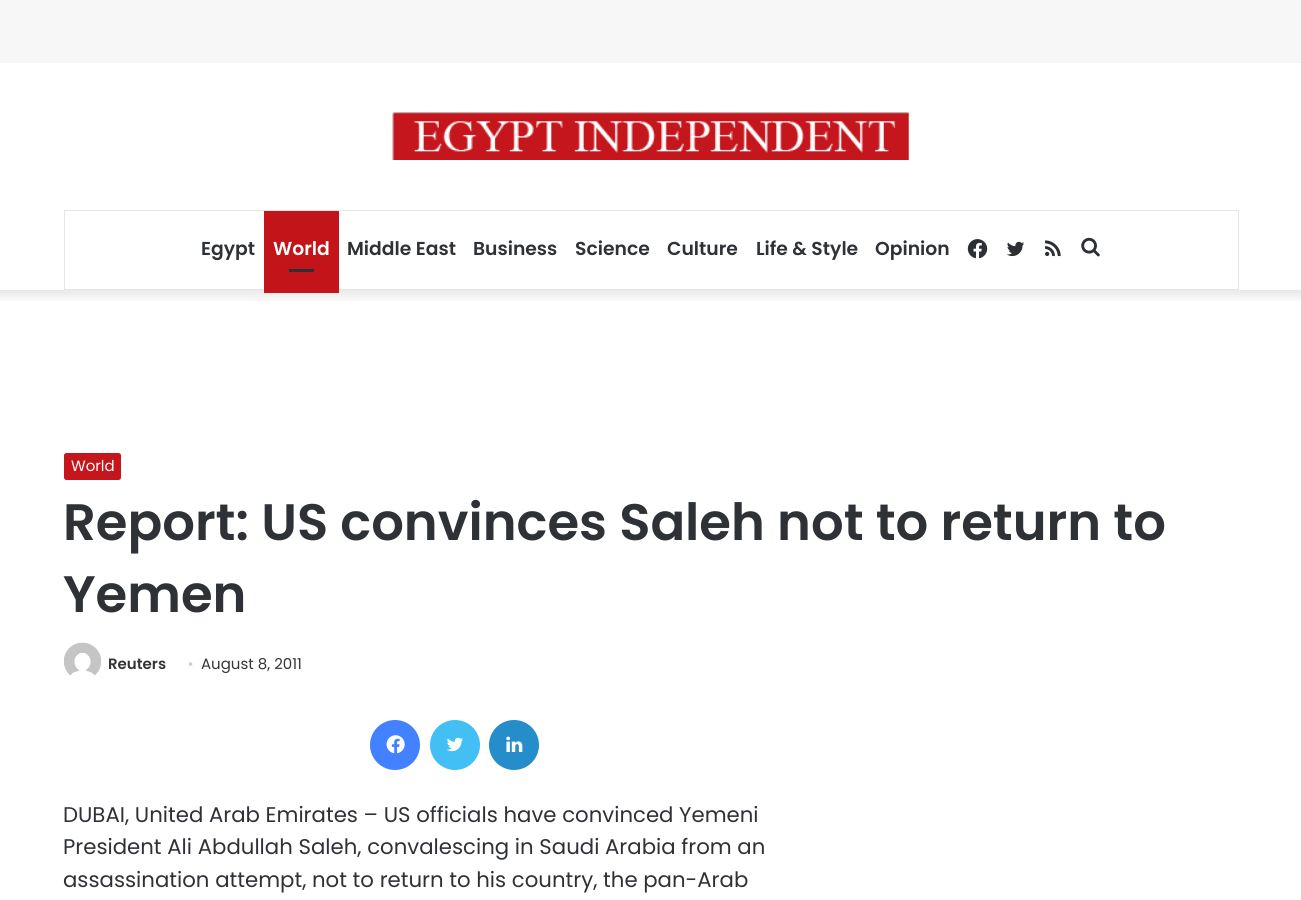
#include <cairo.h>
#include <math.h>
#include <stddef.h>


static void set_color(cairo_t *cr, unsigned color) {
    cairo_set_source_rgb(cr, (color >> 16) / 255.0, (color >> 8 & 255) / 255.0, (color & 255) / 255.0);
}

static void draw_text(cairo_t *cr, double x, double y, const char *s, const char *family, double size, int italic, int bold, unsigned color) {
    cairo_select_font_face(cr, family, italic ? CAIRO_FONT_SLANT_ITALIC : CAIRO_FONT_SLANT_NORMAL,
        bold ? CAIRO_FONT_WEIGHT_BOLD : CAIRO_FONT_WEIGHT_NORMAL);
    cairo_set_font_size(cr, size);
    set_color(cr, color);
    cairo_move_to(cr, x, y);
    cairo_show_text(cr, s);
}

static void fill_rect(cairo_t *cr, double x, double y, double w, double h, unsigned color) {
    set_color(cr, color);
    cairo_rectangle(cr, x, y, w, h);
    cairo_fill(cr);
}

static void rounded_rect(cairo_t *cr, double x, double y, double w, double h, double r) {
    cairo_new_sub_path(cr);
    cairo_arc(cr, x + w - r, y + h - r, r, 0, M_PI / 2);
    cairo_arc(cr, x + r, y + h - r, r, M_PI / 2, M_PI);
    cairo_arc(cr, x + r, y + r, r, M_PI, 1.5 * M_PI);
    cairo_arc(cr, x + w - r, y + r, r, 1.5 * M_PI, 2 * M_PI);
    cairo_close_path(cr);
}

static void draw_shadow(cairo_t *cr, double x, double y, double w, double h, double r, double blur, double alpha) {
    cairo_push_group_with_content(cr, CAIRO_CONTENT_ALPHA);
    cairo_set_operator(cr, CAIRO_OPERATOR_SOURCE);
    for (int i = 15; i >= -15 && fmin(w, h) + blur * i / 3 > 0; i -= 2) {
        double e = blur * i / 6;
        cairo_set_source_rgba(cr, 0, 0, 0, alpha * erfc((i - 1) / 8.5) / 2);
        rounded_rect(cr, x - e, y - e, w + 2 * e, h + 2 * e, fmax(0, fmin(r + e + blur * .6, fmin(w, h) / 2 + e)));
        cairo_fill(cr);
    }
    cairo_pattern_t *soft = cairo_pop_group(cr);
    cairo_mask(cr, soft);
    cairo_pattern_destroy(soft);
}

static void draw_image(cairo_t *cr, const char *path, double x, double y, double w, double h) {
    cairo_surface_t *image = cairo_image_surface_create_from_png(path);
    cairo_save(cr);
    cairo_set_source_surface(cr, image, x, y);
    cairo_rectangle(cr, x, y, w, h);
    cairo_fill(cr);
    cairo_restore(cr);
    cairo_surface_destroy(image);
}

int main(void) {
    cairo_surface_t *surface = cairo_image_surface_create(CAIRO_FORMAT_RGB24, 1301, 900);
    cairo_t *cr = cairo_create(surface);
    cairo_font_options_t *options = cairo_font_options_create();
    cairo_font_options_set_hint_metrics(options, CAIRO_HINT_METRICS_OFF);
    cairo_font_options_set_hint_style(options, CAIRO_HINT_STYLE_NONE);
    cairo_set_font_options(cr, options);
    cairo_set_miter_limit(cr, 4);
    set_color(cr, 0xF7F7F7);
    cairo_paint(cr);
    fill_rect(cr, 0, 63, 1301, 837, 0xFFFFFF);
    cairo_save(cr);
    cairo_rectangle(cr, 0, 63, 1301, 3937);
    cairo_clip(cr);
    cairo_rectangle(cr, 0, 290, 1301, 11);
    cairo_clip(cr);
    set_color(cr, 0x000000);
    draw_shadow(cr, -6, 56, 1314, 240, 0, 6, 0.1);
    cairo_restore(cr);
    draw_image(cr, "assets/img1.png", 392, 112, 517, 48);
    cairo_rectangle(cr, 64.5, 210.5, 1174, 79);
    set_color(cr, 0xE6E6E6);
    cairo_set_line_width(cr, 1);
    cairo_stroke(cr);
    draw_text(cr, 201, 255, "Egypt", "Poppins SemiBold", 18.75, 0, 0, 0x2E3136);
    fill_rect(cr, 264, 211, 75, 82, 0xC31419);
    draw_text(cr, 273, 255, "World", "Poppins SemiBold", 18.75, 0, 0, 0xFFFFFF);
    fill_rect(cr, 289, 269, 25, 3, 0x2C2F34);
    draw_text(cr, 347, 255, "Middle East", "Poppins SemiBold", 18.75, 0, 0, 0x2E3136);
    draw_text(cr, 473, 255, "Business", "Poppins SemiBold", 18.75, 0, 0, 0x2E3136);
    draw_text(cr, 575, 255, "Science", "Poppins SemiBold", 18.75, 0, 0, 0x2E3136);
    draw_text(cr, 667, 255, "Culture", "Poppins SemiBold", 18.75, 0, 0, 0x2E3136);
    draw_text(cr, 756, 255, "Life & Style", "Poppins SemiBold", 18.75, 0, 0, 0x2E3136);
    draw_text(cr, 875, 255, "Opinion", "Poppins SemiBold", 18.75, 0, 0, 0x2E3136);
    draw_image(cr, "assets/img2.png", 967, 239, 21, 20);
    draw_image(cr, "assets/img3.png", 1007, 241, 18, 16);
    draw_image(cr, "assets/img4.png", 1045, 240, 16, 17);
    draw_image(cr, "assets/img5.png", 1081, 237, 19, 20);
    set_color(cr, 0xC4161B);
    rounded_rect(cr, 64, 453, 57, 27, 2.5);
    cairo_fill(cr);
    draw_text(cr, 71, 471, "World", "Poppins", 15, 0, 0, 0xFFFFFF);
    draw_text(cr, 63, 540, "Report: US convinces Saleh not to return to", "Poppins SemiBold", 51.25, 0, 0, 0x2E3136);
    draw_text(cr, 63, 612, "Yemen", "Poppins SemiBold", 51.25, 0, 0, 0x2E3136);
    draw_image(cr, "assets/img6.png", 64, 642, 37, 34);
    draw_text(cr, 108, 669, "Reuters", "Poppins SemiBold", 15, 0, 0, 0x353535);
    draw_text(cr, 188, 669, "•", "Liberation Serif", 15, 0, 0, 0xCDCDCD);
    draw_text(cr, 201, 669, "August 8, 2011", "Poppins", 15, 0, 0, 0x353535);
    set_color(cr, 0x4281FF);
    cairo_new_path(cr);
    cairo_arc(cr, 395, 745, 25, 0, 2 * M_PI);
    cairo_fill(cr);
    draw_image(cr, "assets/img7.png", 386, 735, 19, 19);
    set_color(cr, 0x42C0F5);
    cairo_arc(cr, 455, 745, 25, 0, 2 * M_PI);
    cairo_fill(cr);
    draw_image(cr, "assets/img8.png", 447, 737, 16, 15);
    set_color(cr, 0x258DC9);
    cairo_arc(cr, 514, 745, 25, 0, 2 * M_PI);
    cairo_fill(cr);
    draw_image(cr, "assets/img9.png", 506, 736, 17, 16);
    draw_text(cr, 63, 822, "DUBAI, United Arab Emirates – US officials have convinced Yemeni", "Poppins", 21.25, 0, 0, 0x2E3136);
    draw_text(cr, 63, 854, "President Ali Abdullah Saleh, convalescing in Saudi Arabia from an", "Poppins", 21.25, 0, 0, 0x2E3136);
    draw_text(cr, 63, 887, "assassination attempt, not to return to his country, the pan-Arab", "Poppins", 21.25, 0, 0, 0x2E3136);
    cairo_surface_write_to_png(surface, "output.png");
    cairo_font_options_destroy(options);
    cairo_destroy(cr);
    cairo_surface_destroy(surface);
    return 0;
}
